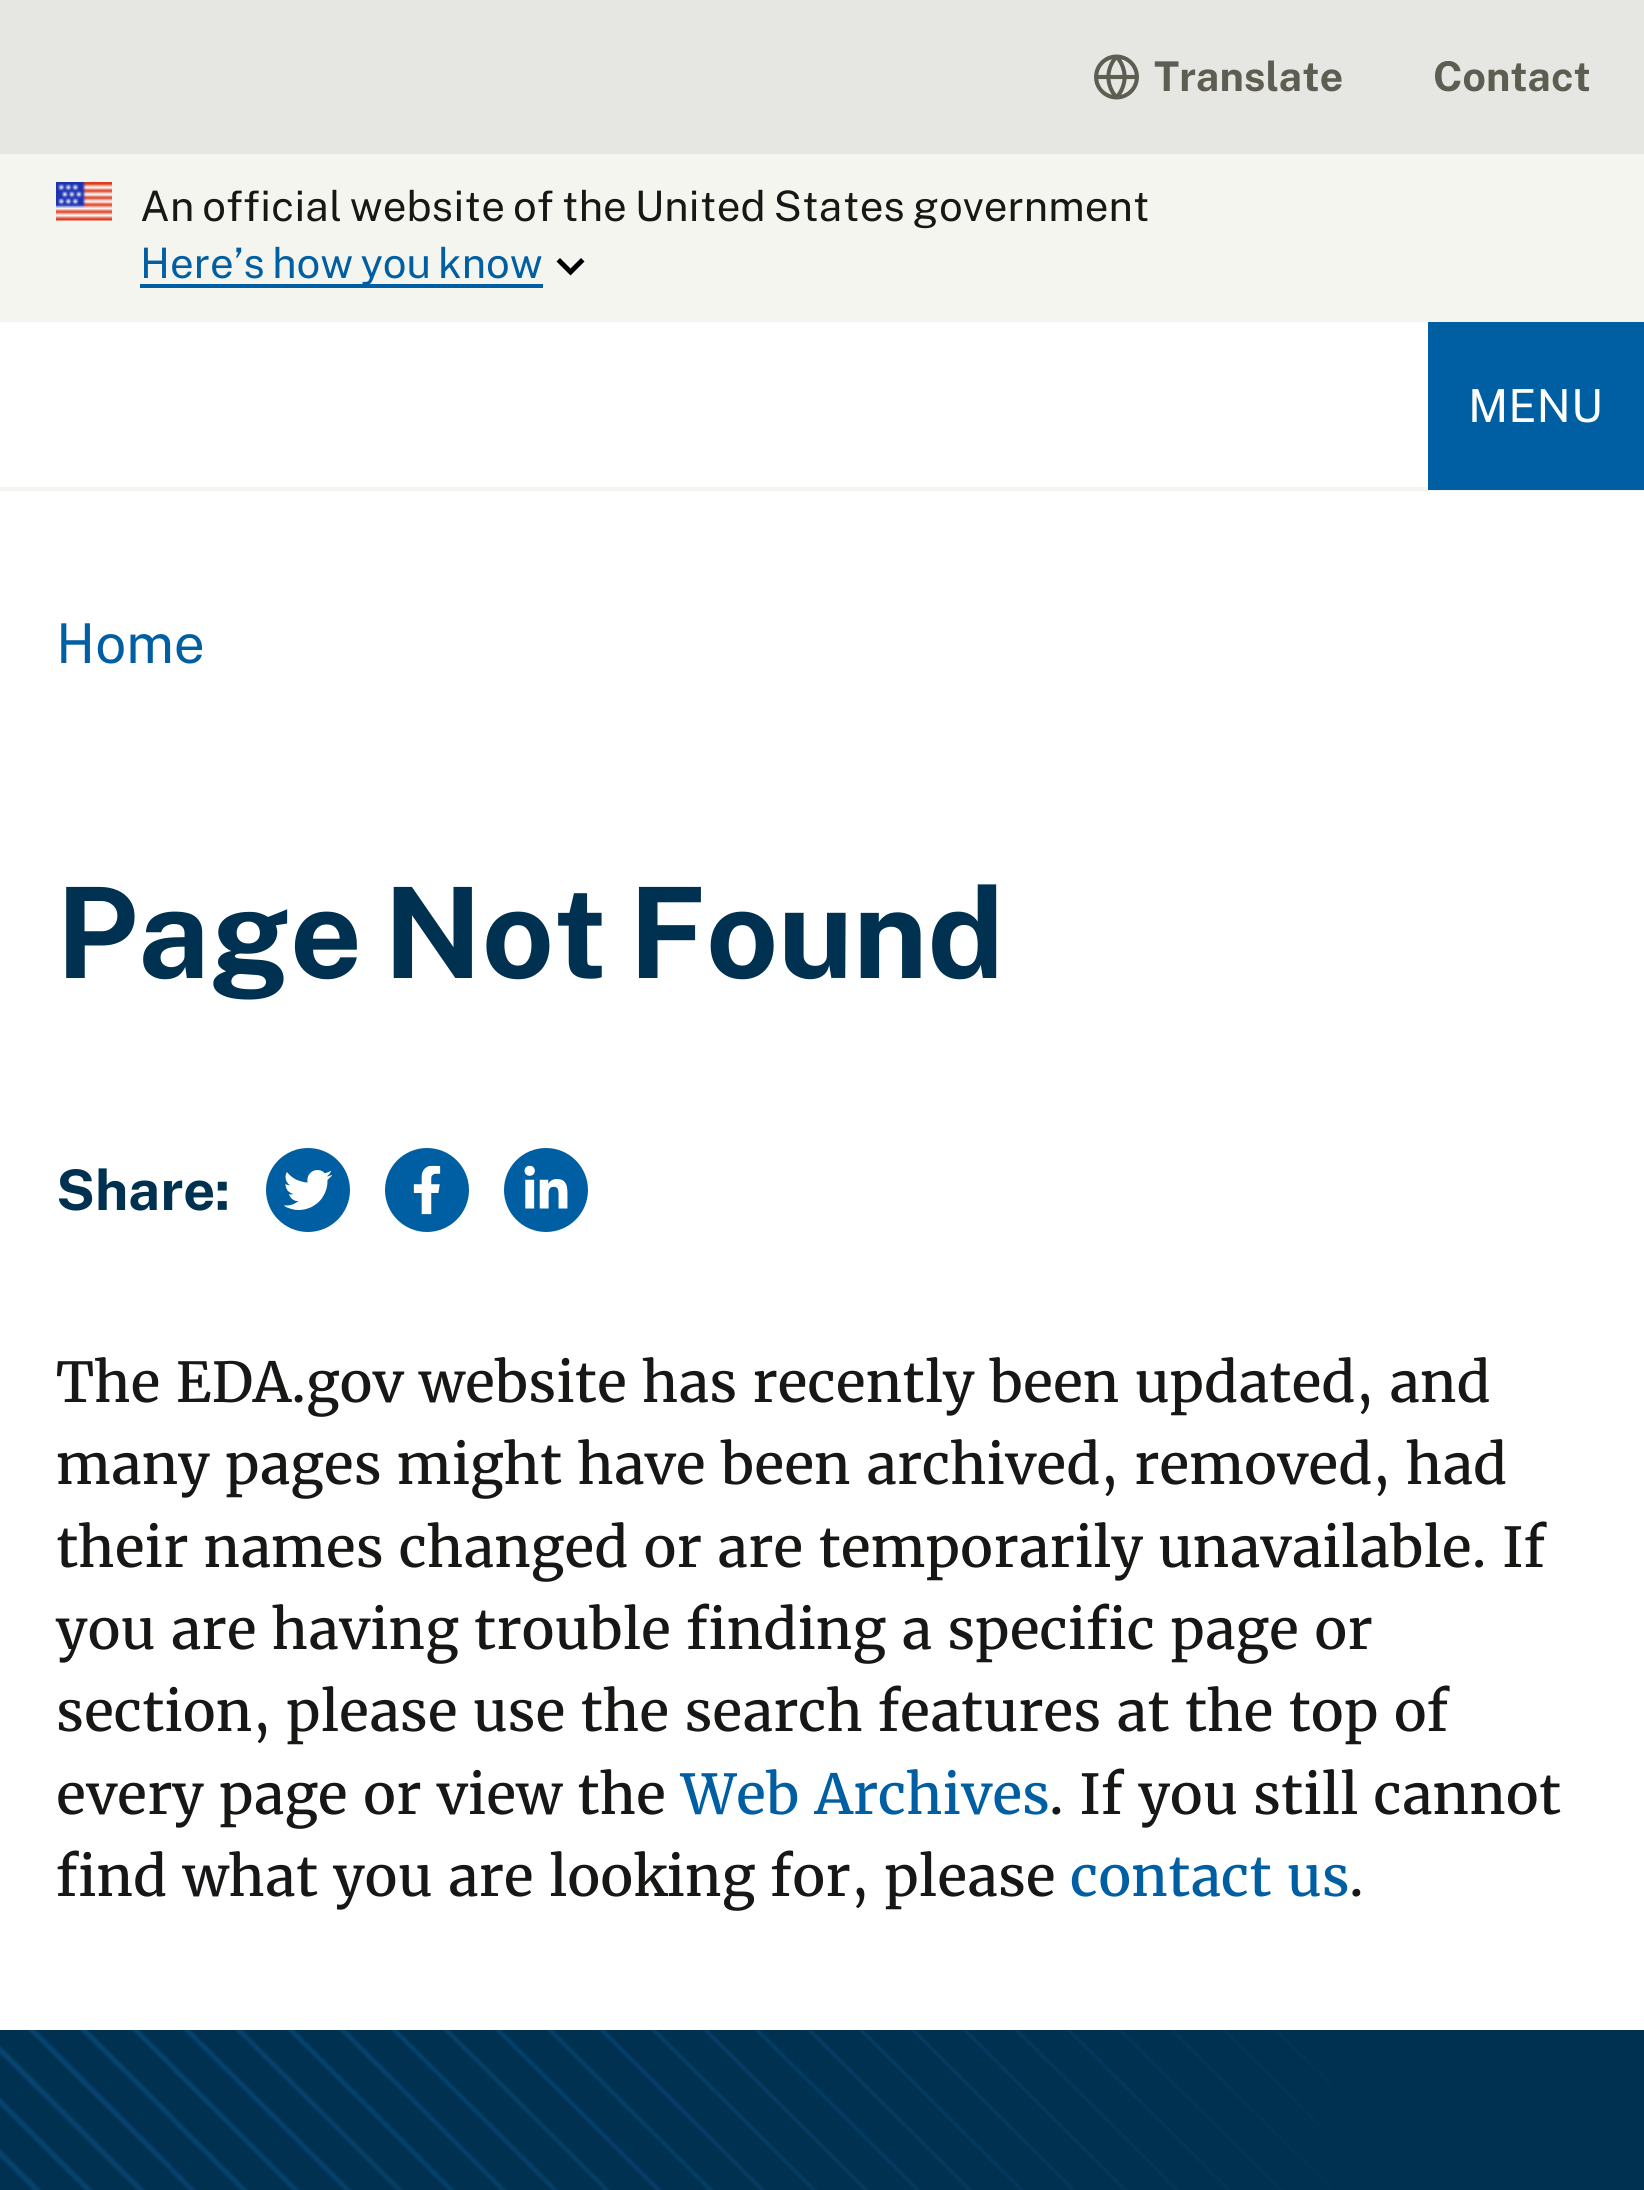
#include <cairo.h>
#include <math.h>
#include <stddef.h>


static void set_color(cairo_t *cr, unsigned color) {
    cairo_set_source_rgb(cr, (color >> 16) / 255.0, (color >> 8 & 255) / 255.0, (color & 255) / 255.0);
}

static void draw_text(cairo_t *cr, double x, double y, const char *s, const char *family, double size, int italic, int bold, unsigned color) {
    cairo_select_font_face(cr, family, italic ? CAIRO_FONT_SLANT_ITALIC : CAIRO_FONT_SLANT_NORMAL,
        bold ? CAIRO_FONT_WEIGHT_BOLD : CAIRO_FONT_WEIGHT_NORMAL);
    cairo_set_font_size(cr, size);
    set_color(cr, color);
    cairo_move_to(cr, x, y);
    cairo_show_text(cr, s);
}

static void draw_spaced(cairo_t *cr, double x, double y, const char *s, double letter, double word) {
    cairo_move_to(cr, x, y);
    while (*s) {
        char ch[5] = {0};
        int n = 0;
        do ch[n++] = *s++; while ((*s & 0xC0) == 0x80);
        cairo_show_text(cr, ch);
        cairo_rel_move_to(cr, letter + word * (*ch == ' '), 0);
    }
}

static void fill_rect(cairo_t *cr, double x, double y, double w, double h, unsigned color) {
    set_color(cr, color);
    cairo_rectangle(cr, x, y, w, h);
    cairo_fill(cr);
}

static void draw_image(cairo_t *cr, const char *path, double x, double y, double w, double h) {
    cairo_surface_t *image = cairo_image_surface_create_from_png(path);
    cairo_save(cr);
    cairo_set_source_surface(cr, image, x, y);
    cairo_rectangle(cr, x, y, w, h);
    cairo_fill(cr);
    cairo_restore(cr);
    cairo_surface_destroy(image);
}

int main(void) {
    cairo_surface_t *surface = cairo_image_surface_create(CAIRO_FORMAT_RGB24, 1644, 2190);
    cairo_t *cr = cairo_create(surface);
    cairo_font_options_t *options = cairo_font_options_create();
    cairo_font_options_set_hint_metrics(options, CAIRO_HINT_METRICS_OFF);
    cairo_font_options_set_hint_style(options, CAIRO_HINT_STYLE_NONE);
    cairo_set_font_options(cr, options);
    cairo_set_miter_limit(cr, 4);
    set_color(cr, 0xFFFFFF);
    cairo_paint(cr);
    fill_rect(cr, 0, 0, 1644, 154, 0xE6E6E2);
    draw_image(cr, "assets/img1.png", 1094, 54, 45, 46);
    draw_text(cr, 1154, 91, "Translate", "Public Sans", 41, 0, 1, 0x5D5D52);
    draw_text(cr, 1433, 91, "Contact", "Public Sans", 41, 0, 1, 0x5D5D52);
    fill_rect(cr, 0, 154, 1644, 168, 0xF5F5F0);
    draw_image(cr, "assets/img2.png", 56, 182, 56, 39);
    cairo_select_font_face(cr, "Public Sans", CAIRO_FONT_SLANT_NORMAL, CAIRO_FONT_WEIGHT_NORMAL);
    cairo_set_font_size(cr, 42);
    set_color(cr, 0x171716);
    draw_spaced(cr, 140, 221, "An official website of the United States government", 0, -1.75);
    fill_rect(cr, 140, 284, 403, 4, 0x005EA2);
    draw_spaced(cr, 140, 278, "Here’s how you know", 0, -2.5);
    set_color(cr, 0x000000);
    cairo_new_path(cr);
    cairo_move_to(cr, 581, 258);
    cairo_line_to(cr, 570.5, 268.5);
    cairo_line_to(cr, 560, 258);
    cairo_line_to(cr, 556.5, 261.5);
    cairo_line_to(cr, 570.5, 275.5);
    cairo_line_to(cr, 584.5, 261.5);
    cairo_close_path(cr);
    cairo_fill(cr);
    fill_rect(cr, 0, 487, 1644, 4, 0xF5F5F0);
    fill_rect(cr, 1428, 322, 216, 168, 0x005EA2);
    draw_text(cr, 1468, 422, "MENU", "Public Sans", 45.5, 0, 0, 0xFFFFFF);
    draw_text(cr, 56, 663, "Home", "Public Sans", 54.9, 0, 0, 0x005EA2);
    cairo_select_font_face(cr, "Public Sans", CAIRO_FONT_SLANT_NORMAL, CAIRO_FONT_WEIGHT_BOLD);
    cairo_set_font_size(cr, 126);
    set_color(cr, 0x003150);
    draw_spaced(cr, 56, 978, "Page Not Found", 0, -5);
    draw_text(cr, 56, 1210, "Share:", "Public Sans", 56, 0, 1, 0x003150);
    set_color(cr, 0x005EA2);
    cairo_new_path(cr);
    cairo_arc(cr, 308, 1190, 42, 0, 2 * M_PI);
    cairo_fill(cr);
    draw_image(cr, "assets/img3.png", 284, 1170, 48, 40);
    cairo_arc(cr, 427, 1190, 42, 0, 2 * M_PI);
    cairo_fill(cr);
    draw_image(cr, "assets/img4.png", 413, 1165, 28, 50);
    cairo_arc(cr, 546, 1190, 42, 0, 2 * M_PI);
    cairo_fill(cr);
    draw_image(cr, "assets/img5.png", 524, 1165, 44, 44);
    draw_text(cr, 56, 1402, "The EDA.gov website has recently been updated, and", "Merriweather", 54.9, 0, 0, 0x171716);
    draw_text(cr, 56, 1484, "many pages might have been archived, removed, had", "Merriweather", 54.9, 0, 0, 0x171716);
    draw_text(cr, 56, 1567, "their names changed or are temporarily unavailable. If", "Merriweather", 54.9, 0, 0, 0x171716);
    draw_text(cr, 56, 1649, "you are having trouble finding a specific page or", "Merriweather", 54.9, 0, 0, 0x171716);
    draw_text(cr, 56, 1731, "section, please use the search features at the top of", "Merriweather", 54.9, 0, 0, 0x171716);
    draw_text(cr, 56, 1814, "every page or view the", "Merriweather", 54.9, 0, 0, 0x171716);
    draw_text(cr, 681, 1814, "Web Archives", "Merriweather", 54.9, 0, 0, 0x005EA2);
    draw_text(cr, 1049, 1814, ". If you still cannot", "Merriweather", 54.9, 0, 0, 0x171716);
    draw_text(cr, 56, 1896, "find what you are looking for, please", "Merriweather", 54.9, 0, 0, 0x171716);
    draw_text(cr, 1070, 1896, "contact us", "Merriweather", 54.9, 0, 0, 0x005EA2);
    draw_text(cr, 1349, 1896, ".", "Merriweather", 54.9, 0, 0, 0x171716);
    fill_rect(cr, 0, 2030, 1644, 160, 0x003150);
    draw_image(cr, "assets/img6.png", 0, 2030, 1330, 160);
    cairo_surface_write_to_png(surface, "output.png");
    cairo_font_options_destroy(options);
    cairo_destroy(cr);
    cairo_surface_destroy(surface);
    return 0;
}
